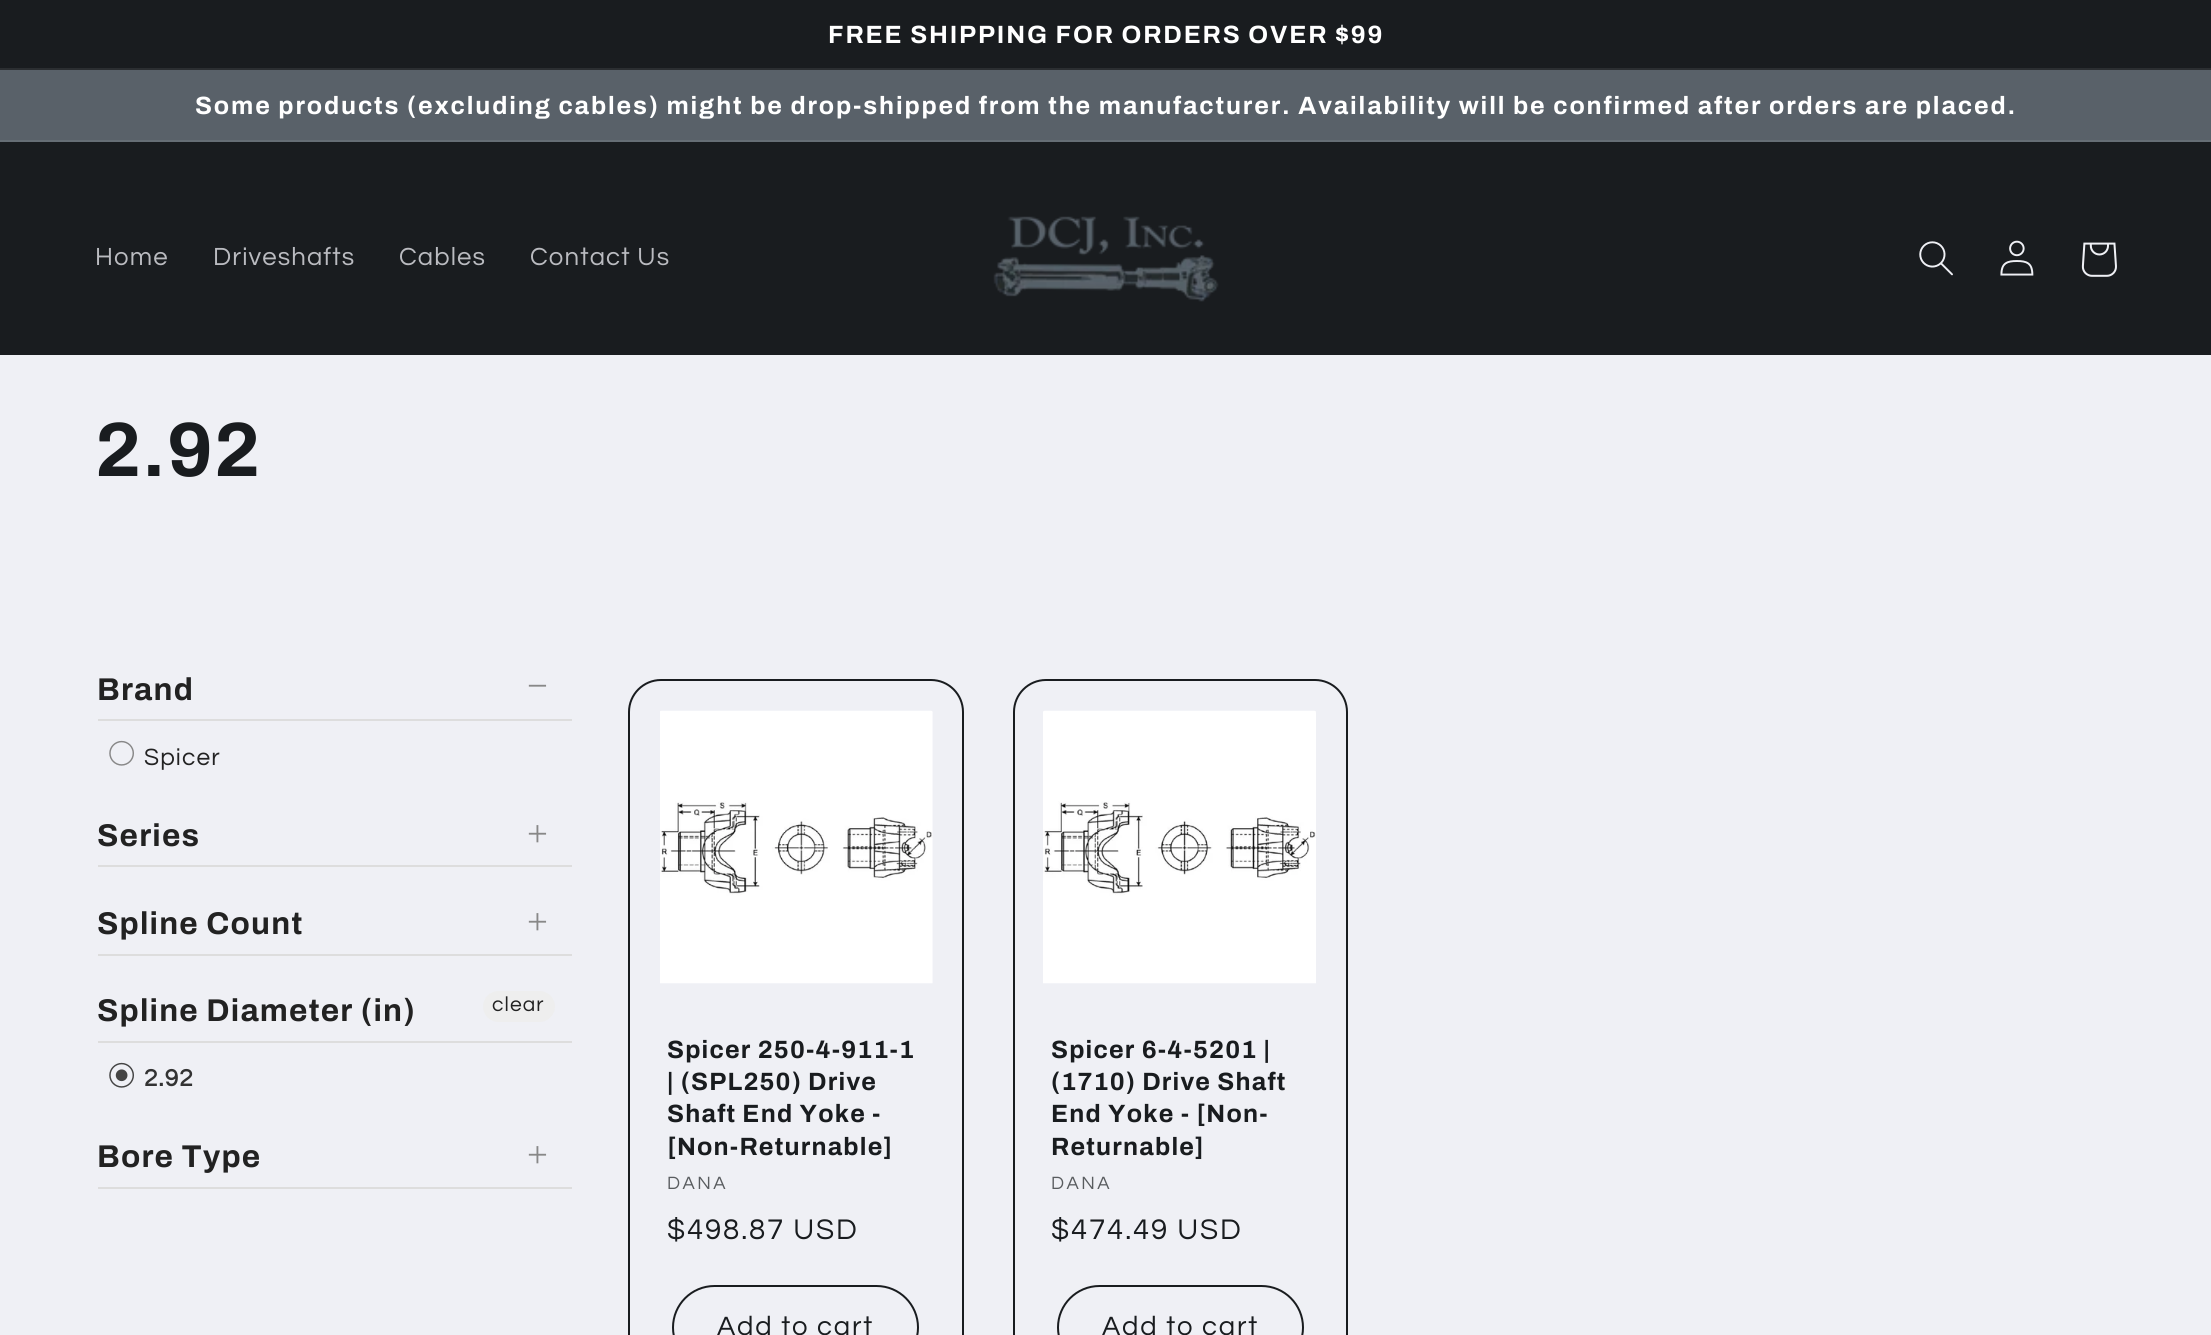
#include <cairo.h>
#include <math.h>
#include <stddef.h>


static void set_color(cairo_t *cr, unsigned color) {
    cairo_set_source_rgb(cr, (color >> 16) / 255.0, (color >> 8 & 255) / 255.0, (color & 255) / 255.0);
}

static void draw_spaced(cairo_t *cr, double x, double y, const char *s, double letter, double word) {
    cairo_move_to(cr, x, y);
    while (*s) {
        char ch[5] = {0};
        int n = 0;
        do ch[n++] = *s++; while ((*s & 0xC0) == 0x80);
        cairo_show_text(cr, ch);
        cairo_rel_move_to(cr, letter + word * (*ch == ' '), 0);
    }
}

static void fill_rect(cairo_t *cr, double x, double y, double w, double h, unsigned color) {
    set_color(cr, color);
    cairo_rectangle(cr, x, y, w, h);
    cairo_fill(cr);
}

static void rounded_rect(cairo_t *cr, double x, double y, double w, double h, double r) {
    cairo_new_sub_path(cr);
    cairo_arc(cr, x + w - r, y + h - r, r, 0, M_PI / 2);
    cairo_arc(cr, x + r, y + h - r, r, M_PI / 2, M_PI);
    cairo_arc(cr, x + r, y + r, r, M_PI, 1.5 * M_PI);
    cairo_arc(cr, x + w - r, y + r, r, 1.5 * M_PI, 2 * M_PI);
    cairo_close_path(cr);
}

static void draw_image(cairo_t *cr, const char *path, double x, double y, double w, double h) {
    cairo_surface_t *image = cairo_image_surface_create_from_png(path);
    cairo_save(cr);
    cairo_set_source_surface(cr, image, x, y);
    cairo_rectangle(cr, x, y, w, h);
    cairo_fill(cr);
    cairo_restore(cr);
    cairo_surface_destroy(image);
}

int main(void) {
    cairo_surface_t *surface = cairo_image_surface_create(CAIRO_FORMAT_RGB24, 2211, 1335);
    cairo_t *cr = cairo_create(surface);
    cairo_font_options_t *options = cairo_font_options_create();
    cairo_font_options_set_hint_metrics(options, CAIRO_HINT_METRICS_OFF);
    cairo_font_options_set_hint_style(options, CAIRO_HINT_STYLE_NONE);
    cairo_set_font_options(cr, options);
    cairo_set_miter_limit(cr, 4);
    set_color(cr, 0xEFF0F5);
    cairo_paint(cr);
    fill_rect(cr, 0, 0, 2211, 68, 0x191C1F);
    fill_rect(cr, 0, 68, 2211, 2, 0x2B2E31);
    cairo_select_font_face(cr, "Archivo", CAIRO_FONT_SLANT_NORMAL, CAIRO_FONT_WEIGHT_BOLD);
    cairo_set_font_size(cr, 25.03);
    set_color(cr, 0xFFFFFF);
    draw_spaced(cr, 828, 43, "FREE SHIPPING FOR ORDERS OVER $99", 1.84, 0);
    fill_rect(cr, 0, 70, 2211, 70, 0x596169);
    fill_rect(cr, 0, 140, 2211, 2, 0x666E75);
    set_color(cr, 0xFFFFFF);
    draw_spaced(cr, 195, 114, "Some products (excluding cables) might be drop-shipped from the manufacturer. Availability will be confirmed after orders are placed.", 1.84, 0);
    fill_rect(cr, 0, 142, 2211, 213, 0x191C1F);
    cairo_select_font_face(cr, "Questrial", CAIRO_FONT_SLANT_NORMAL, CAIRO_FONT_WEIGHT_NORMAL);
    cairo_set_font_size(cr, 25.75);
    set_color(cr, 0xBABBC0);
    draw_spaced(cr, 95, 265, "Home", 1.1, 0);
    draw_spaced(cr, 213, 265, "Driveshafts", 1.1, 0);
    draw_spaced(cr, 399, 265, "Cables", 1.1, 0);
    draw_spaced(cr, 530, 265, "Contact Us", 1.1, 0);
    draw_image(cr, "assets/img1.png", 993, 216, 226, 86);
    draw_image(cr, "assets/img2.png", 1919, 241, 34, 35);
    draw_image(cr, "assets/img3.png", 2000, 240, 34, 36);
    draw_image(cr, "assets/img4.png", 2081, 242, 36, 35);
    cairo_select_font_face(cr, "Archivo", CAIRO_FONT_SLANT_NORMAL, CAIRO_FONT_WEIGHT_BOLD);
    cairo_set_font_size(cr, 77);
    set_color(cr, 0x191C1F);
    draw_spaced(cr, 95, 476, "2.92", 1.2, 0);
    fill_rect(cr, 98, 719, 474, 2, 0xDDDDDD);
    cairo_set_font_size(cr, 31.5);
    set_color(cr, 0x222222);
    draw_spaced(cr, 97, 700, "Brand", 1.2, 0);
    cairo_select_font_face(cr, "Liberation Serif", CAIRO_FONT_SLANT_NORMAL, CAIRO_FONT_WEIGHT_NORMAL);
    cairo_set_font_size(cr, 37);
    set_color(cr, 0x888888);
    draw_spaced(cr, 527, 698, "−", 1.2, 0);
    draw_image(cr, "assets/img5.png", 109, 740, 25, 26);
    cairo_select_font_face(cr, "Questrial", CAIRO_FONT_SLANT_NORMAL, CAIRO_FONT_WEIGHT_NORMAL);
    cairo_set_font_size(cr, 24.5);
    set_color(cr, 0x222222);
    draw_spaced(cr, 144, 765, "Spicer", 1.1, 0);
    fill_rect(cr, 98, 865, 474, 2, 0xDDDDDD);
    cairo_select_font_face(cr, "Archivo", CAIRO_FONT_SLANT_NORMAL, CAIRO_FONT_WEIGHT_BOLD);
    cairo_set_font_size(cr, 31.5);
    set_color(cr, 0x222222);
    draw_spaced(cr, 97, 846, "Series", 1.2, 0);
    cairo_select_font_face(cr, "Liberation Serif", CAIRO_FONT_SLANT_NORMAL, CAIRO_FONT_WEIGHT_NORMAL);
    cairo_set_font_size(cr, 37);
    set_color(cr, 0x888888);
    draw_spaced(cr, 527, 846, "+", 1.2, 0);
    fill_rect(cr, 98, 954, 474, 2, 0xDDDDDD);
    cairo_select_font_face(cr, "Archivo", CAIRO_FONT_SLANT_NORMAL, CAIRO_FONT_WEIGHT_BOLD);
    cairo_set_font_size(cr, 31.5);
    set_color(cr, 0x222222);
    draw_spaced(cr, 97, 934, "Spline Count", 1.2, 0);
    cairo_select_font_face(cr, "Liberation Serif", CAIRO_FONT_SLANT_NORMAL, CAIRO_FONT_WEIGHT_NORMAL);
    cairo_set_font_size(cr, 37);
    set_color(cr, 0x888888);
    draw_spaced(cr, 527, 934, "+", 1.2, 0);
    fill_rect(cr, 98, 1041, 474, 2, 0xDDDDDD);
    cairo_select_font_face(cr, "Archivo", CAIRO_FONT_SLANT_NORMAL, CAIRO_FONT_WEIGHT_BOLD);
    cairo_set_font_size(cr, 31.5);
    set_color(cr, 0x222222);
    draw_spaced(cr, 97, 1021, "Spline Diameter (in)", 1.2, 0);
    set_color(cr, 0xEEEEEE);
    rounded_rect(cr, 483, 991, 72, 31, 15.5);
    cairo_fill(cr);
    cairo_select_font_face(cr, "Questrial", CAIRO_FONT_SLANT_NORMAL, CAIRO_FONT_WEIGHT_NORMAL);
    cairo_set_font_size(cr, 21);
    set_color(cr, 0x222222);
    draw_spaced(cr, 492, 1011, "clear", 1.1, 0);
    draw_image(cr, "assets/img6.png", 109, 1062, 25, 26);
    cairo_select_font_face(cr, "Questrial", CAIRO_FONT_SLANT_NORMAL, CAIRO_FONT_WEIGHT_BOLD);
    cairo_set_font_size(cr, 24.5);
    set_color(cr, 0x333333);
    draw_spaced(cr, 144, 1086, "2.92", 1.1, 0);
    fill_rect(cr, 98, 1187, 474, 2, 0xDDDDDD);
    cairo_select_font_face(cr, "Archivo", CAIRO_FONT_SLANT_NORMAL, CAIRO_FONT_WEIGHT_BOLD);
    cairo_set_font_size(cr, 31.5);
    set_color(cr, 0x222222);
    draw_spaced(cr, 97, 1167, "Bore Type", 1.2, 0);
    cairo_select_font_face(cr, "Liberation Serif", CAIRO_FONT_SLANT_NORMAL, CAIRO_FONT_WEIGHT_NORMAL);
    cairo_set_font_size(cr, 37);
    set_color(cr, 0x888888);
    draw_spaced(cr, 527, 1167, "+", 1.2, 0);
    rounded_rect(cr, 629, 680, 334, 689, 32);
    set_color(cr, 0x191C1F);
    cairo_stroke(cr);
    draw_image(cr, "assets/img7.png", 660, 710, 273, 274);
    cairo_select_font_face(cr, "Archivo", CAIRO_FONT_SLANT_NORMAL, CAIRO_FONT_WEIGHT_BOLD);
    cairo_set_font_size(cr, 25.03);
    draw_spaced(cr, 667, 1058, "Spicer 250-4-911-1", 1.2, 0);
    draw_spaced(cr, 667, 1090, "| (SPL250) Drive", 1.2, 0);
    draw_spaced(cr, 667, 1122, "Shaft End Yoke -", 1.2, 0);
    draw_spaced(cr, 667, 1155, "[Non-Returnable]", 1.2, 0);
    cairo_select_font_face(cr, "Questrial", CAIRO_FONT_SLANT_NORMAL, CAIRO_FONT_WEIGHT_NORMAL);
    cairo_set_font_size(cr, 18.5);
    set_color(cr, 0x595C5F);
    draw_spaced(cr, 667, 1189, "DANA", 2.5, 0);
    cairo_set_font_size(cr, 29.5);
    set_color(cr, 0x191C1F);
    draw_spaced(cr, 667, 1239, "$498.87 USD", 1.84, 0);
    rounded_rect(cr, 673, 1286, 245, 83, 41.5);
    cairo_stroke(cr);
    cairo_set_font_size(cr, 27.5);
    draw_spaced(cr, 717, 1335, "Add to cart", 1.84, 0);
    rounded_rect(cr, 1014, 680, 333, 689, 32);
    cairo_stroke(cr);
    draw_image(cr, "assets/img8.png", 1043, 710, 273, 274);
    cairo_select_font_face(cr, "Archivo", CAIRO_FONT_SLANT_NORMAL, CAIRO_FONT_WEIGHT_BOLD);
    cairo_set_font_size(cr, 25.03);
    draw_spaced(cr, 1051, 1058, "Spicer 6-4-5201 |", 1.2, 0);
    draw_spaced(cr, 1051, 1090, "(1710) Drive Shaft", 1.2, 0);
    draw_spaced(cr, 1051, 1122, "End Yoke - [Non-", 1.2, 0);
    draw_spaced(cr, 1051, 1155, "Returnable]", 1.2, 0);
    cairo_select_font_face(cr, "Questrial", CAIRO_FONT_SLANT_NORMAL, CAIRO_FONT_WEIGHT_NORMAL);
    cairo_set_font_size(cr, 18.5);
    set_color(cr, 0x595C5F);
    draw_spaced(cr, 1051, 1189, "DANA", 2.5, 0);
    cairo_set_font_size(cr, 29.5);
    set_color(cr, 0x191C1F);
    draw_spaced(cr, 1051, 1239, "$474.49 USD", 1.84, 0);
    rounded_rect(cr, 1058, 1286, 245, 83, 41.5);
    cairo_stroke(cr);
    cairo_set_font_size(cr, 27.5);
    draw_spaced(cr, 1102, 1335, "Add to cart", 1.84, 0);
    cairo_surface_write_to_png(surface, "output.png");
    cairo_font_options_destroy(options);
    cairo_destroy(cr);
    cairo_surface_destroy(surface);
    return 0;
}
